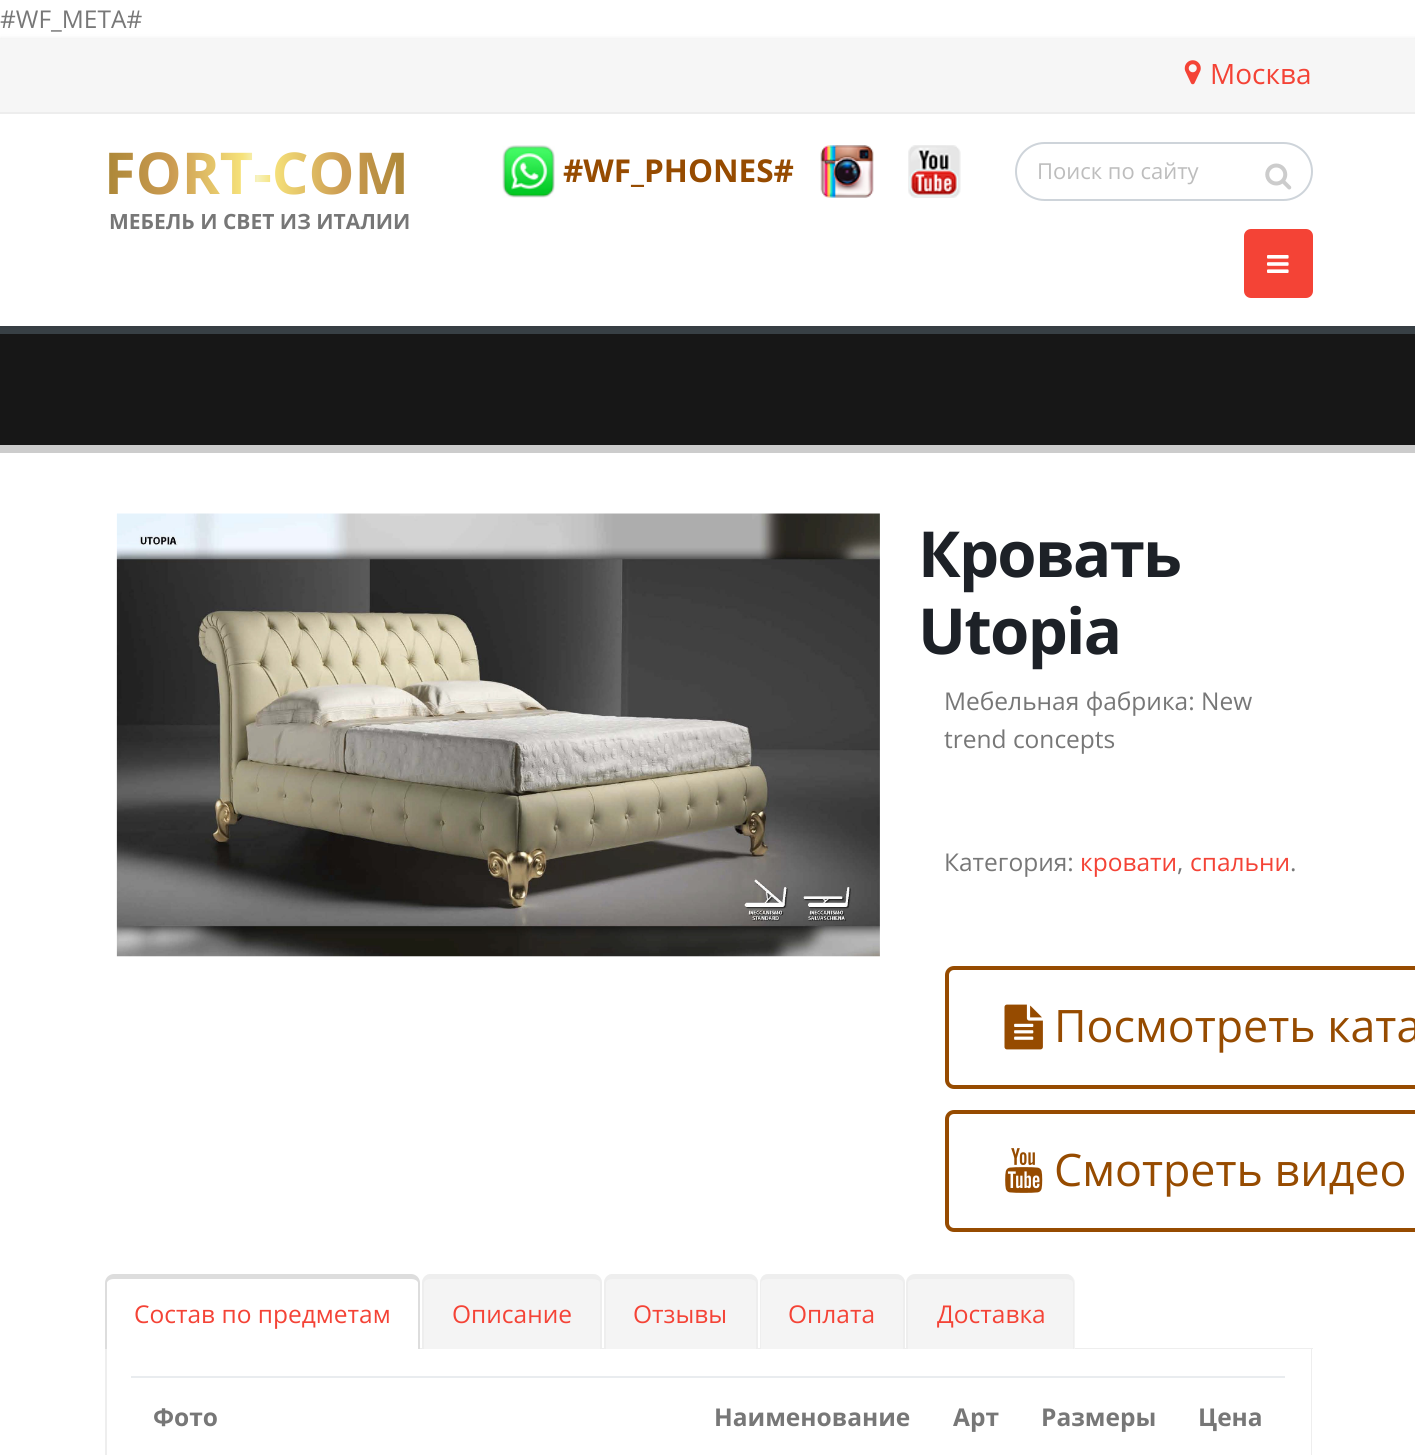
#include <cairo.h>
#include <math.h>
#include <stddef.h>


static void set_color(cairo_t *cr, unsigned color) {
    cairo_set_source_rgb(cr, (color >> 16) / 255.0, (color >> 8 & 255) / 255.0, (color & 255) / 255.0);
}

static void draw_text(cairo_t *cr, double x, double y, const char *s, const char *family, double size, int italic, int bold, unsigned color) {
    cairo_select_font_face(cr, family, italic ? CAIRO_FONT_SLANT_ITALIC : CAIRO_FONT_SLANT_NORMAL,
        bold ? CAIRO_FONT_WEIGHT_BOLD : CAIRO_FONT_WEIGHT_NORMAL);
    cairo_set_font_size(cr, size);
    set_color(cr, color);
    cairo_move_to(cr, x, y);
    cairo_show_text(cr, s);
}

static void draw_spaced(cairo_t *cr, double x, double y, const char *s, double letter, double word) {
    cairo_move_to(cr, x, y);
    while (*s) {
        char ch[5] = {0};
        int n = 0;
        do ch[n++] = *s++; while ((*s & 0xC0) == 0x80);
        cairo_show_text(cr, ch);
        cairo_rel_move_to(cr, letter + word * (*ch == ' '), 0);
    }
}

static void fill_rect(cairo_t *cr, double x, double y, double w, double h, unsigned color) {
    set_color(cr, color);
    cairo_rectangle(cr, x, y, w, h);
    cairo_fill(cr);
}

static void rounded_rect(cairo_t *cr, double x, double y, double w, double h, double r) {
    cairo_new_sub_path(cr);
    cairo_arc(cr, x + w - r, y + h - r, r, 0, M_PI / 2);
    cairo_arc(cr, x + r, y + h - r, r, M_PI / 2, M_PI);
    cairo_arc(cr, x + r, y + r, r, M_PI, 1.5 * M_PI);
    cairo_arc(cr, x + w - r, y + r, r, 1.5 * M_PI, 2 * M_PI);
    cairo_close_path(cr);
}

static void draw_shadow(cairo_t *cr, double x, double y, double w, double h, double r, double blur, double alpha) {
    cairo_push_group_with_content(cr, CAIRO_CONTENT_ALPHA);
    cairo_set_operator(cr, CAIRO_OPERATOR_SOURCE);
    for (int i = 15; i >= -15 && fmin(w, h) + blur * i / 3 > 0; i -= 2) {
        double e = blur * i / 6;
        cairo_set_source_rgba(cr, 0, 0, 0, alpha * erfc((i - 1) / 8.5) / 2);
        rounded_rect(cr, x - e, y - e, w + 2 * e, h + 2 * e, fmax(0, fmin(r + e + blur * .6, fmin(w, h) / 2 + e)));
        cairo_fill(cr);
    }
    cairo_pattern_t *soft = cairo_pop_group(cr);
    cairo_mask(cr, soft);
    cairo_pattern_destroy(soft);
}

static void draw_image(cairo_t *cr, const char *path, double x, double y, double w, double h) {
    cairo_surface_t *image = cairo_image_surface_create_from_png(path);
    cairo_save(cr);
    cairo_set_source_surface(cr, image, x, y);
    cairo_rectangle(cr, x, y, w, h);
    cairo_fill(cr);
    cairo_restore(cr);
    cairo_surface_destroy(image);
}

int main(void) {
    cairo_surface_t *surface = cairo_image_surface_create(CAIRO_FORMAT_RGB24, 1415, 1455);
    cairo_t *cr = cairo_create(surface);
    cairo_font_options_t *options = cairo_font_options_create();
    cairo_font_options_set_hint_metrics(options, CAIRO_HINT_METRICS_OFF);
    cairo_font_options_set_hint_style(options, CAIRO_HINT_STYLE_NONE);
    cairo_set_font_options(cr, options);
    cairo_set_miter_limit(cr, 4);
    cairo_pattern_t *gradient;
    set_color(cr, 0xFFFFFF);
    cairo_paint(cr);
    draw_text(cr, 0, 28, "#WF_META#", "Open Sans", 24.5, 0, 0, 0x777777);
    fill_rect(cr, 0, 334, 1415, 111, 0x171717);
    fill_rect(cr, 0, 326, 1415, 8, 0x384045);
    set_color(cr, 0x000000);
    draw_shadow(cr, 0, 39, 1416, 287, 0, 2.5, 0.1);
    fill_rect(cr, 0, 114, 1415, 212, 0xFFFFFF);
    fill_rect(cr, 0, 39, 1415, 73, 0xF6F6F6);
    fill_rect(cr, 0, 112, 1415, 2, 0xEDEDED);
    draw_image(cr, "assets/img1.png", 1184, 60, 17, 25);
    draw_text(cr, 1210, 84, "Москва", "Open Sans", 28, 0, 0, 0xF44336);
    cairo_select_font_face(cr, "Open Sans", CAIRO_FONT_SLANT_NORMAL, CAIRO_FONT_WEIGHT_BOLD);
    cairo_set_font_size(cr, 57.75);
    gradient = cairo_pattern_create_linear(104, 173, 411, 173);
    cairo_pattern_add_color_stop_rgba(gradient, 0, 0.671, 0.529, 0.216, 1);
    cairo_pattern_add_color_stop_rgba(gradient, 0.22, 0.796, 0.608, 0.318, 1);
    cairo_pattern_add_color_stop_rgba(gradient, 0.45, 0.965, 0.886, 0.478, 1);
    cairo_pattern_add_color_stop_rgba(gradient, 0.5, 0.965, 0.949, 0.753, 1);
    cairo_pattern_add_color_stop_rgba(gradient, 0.55, 0.965, 0.886, 0.478, 1);
    cairo_pattern_add_color_stop_rgba(gradient, 0.78, 0.796, 0.608, 0.318, 1);
    cairo_pattern_add_color_stop_rgba(gradient, 1, 0.671, 0.529, 0.216, 1);
    cairo_set_source(cr, gradient);
    cairo_pattern_destroy(gradient);
    cairo_move_to(cr, 104, 194);
    cairo_show_text(cr, "FORT-COM");
    draw_text(cr, 109, 229, "МЕБЕЛЬ И СВЕТ ИЗ ИТАЛИИ", "Open Sans", 21, 0, 1, 0x777777);
    draw_image(cr, "assets/img2.png", 502, 145, 53, 53);
    draw_text(cr, 563, 182, "#WF_PHONES#", "Open Sans", 31.5, 0, 1, 0x964B00);
    draw_image(cr, "assets/img3.png", 820, 145, 54, 53);
    draw_image(cr, "assets/img4.png", 908, 145, 53, 53);
    rounded_rect(cr, 1016, 143, 296, 57, 28.5);
    set_color(cr, 0xCED4DA);
    cairo_stroke(cr);
    draw_text(cr, 1037, 179, "Поиск по сайту", "Open Sans", 22, 0, 0, 0xBDBDBD);
    draw_image(cr, "assets/img5.png", 1265, 163, 27, 27);
    set_color(cr, 0xF44336);
    rounded_rect(cr, 1244, 229, 69, 69, 7);
    cairo_fill(cr);
    draw_image(cr, "assets/img6.png", 1267, 255, 22, 18);
    fill_rect(cr, 0, 445, 1415, 8, 0xCCCCCC);
    draw_image(cr, "assets/img7.png", 116, 513, 764, 444);
    cairo_select_font_face(cr, "Open Sans", CAIRO_FONT_SLANT_NORMAL, CAIRO_FONT_WEIGHT_BOLD);
    cairo_set_font_size(cr, 63.5);
    set_color(cr, 0x1D2127);
    draw_spaced(cr, 918, 577, "Кровать", -1.75, 0);
    draw_spaced(cr, 918, 654, "Utopia", -1.75, 0);
    draw_text(cr, 944, 710, "Мебельная фабрика: New", "Open Sans", 24.5, 0, 0, 0x777777);
    draw_text(cr, 944, 748, "trend concepts", "Open Sans", 24.5, 0, 0, 0x777777);
    draw_text(cr, 944, 871, "Категория:", "Open Sans", 24.5, 0, 0, 0x777777);
    draw_text(cr, 1080, 871, "кровати", "Open Sans", 24.5, 0, 0, 0xF44336);
    draw_text(cr, 1177, 871, ",", "Open Sans", 24.5, 0, 0, 0x777777);
    draw_text(cr, 1190, 871, "спальни", "Open Sans", 24.5, 0, 0, 0xF44336);
    draw_text(cr, 1290, 871, ".", "Open Sans", 24.5, 0, 0, 0x777777);
    rounded_rect(cr, 947, 968, 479, 119, 7);
    set_color(cr, 0x964B00);
    cairo_set_line_width(cr, 4);
    cairo_stroke(cr);
    draw_image(cr, "assets/img8.png", 1004, 1004, 39, 46);
    draw_text(cr, 1054, 1042, "Посмотреть ката", "Open Sans", 44.75, 0, 0, 0x964B00);
    rounded_rect(cr, 947, 1112, 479, 118, 7);
    cairo_stroke(cr);
    draw_image(cr, "assets/img9.png", 1005, 1148, 38, 45);
    draw_text(cr, 1054, 1186, "Смотреть видео", "Open Sans", 44.75, 0, 0, 0x964B00);
    fill_rect(cr, 420, 1348, 893, 1, 0xEEEEEE);
    set_color(cr, 0xDDDDDD);
    cairo_set_fill_rule(cr, CAIRO_FILL_RULE_EVEN_ODD);
    cairo_new_path(cr);
    cairo_move_to(cr, 114, 1274);
    cairo_line_to(cr, 411, 1274);
    cairo_curve_to(cr, 416, 1274, 420, 1278, 420, 1283);
    cairo_line_to(cr, 420, 1349);
    cairo_line_to(cr, 105, 1349);
    cairo_line_to(cr, 105, 1283);
    cairo_curve_to(cr, 105, 1278, 109, 1274, 114, 1274);
    cairo_close_path(cr);
    cairo_move_to(cr, 114, 1279);
    cairo_line_to(cr, 411, 1279);
    cairo_curve_to(cr, 415, 1279, 418, 1281, 418, 1283);
    cairo_line_to(cr, 418, 1349);
    cairo_line_to(cr, 107, 1349);
    cairo_line_to(cr, 107, 1283);
    cairo_curve_to(cr, 107, 1281, 110, 1279, 114, 1279);
    cairo_close_path(cr);
    cairo_fill(cr);
    draw_text(cr, 134, 1323, "Состав по предметам", "Open Sans", 24.5, 0, 0, 0xF44336);
    set_color(cr, 0xF4F4F4);
    cairo_new_path(cr);
    cairo_move_to(cr, 431, 1274);
    cairo_line_to(cr, 593, 1274);
    cairo_curve_to(cr, 598, 1274, 602, 1278, 602, 1283);
    cairo_line_to(cr, 602, 1349);
    cairo_line_to(cr, 422, 1349);
    cairo_line_to(cr, 422, 1283);
    cairo_curve_to(cr, 422, 1278, 426, 1274, 431, 1274);
    cairo_close_path(cr);
    cairo_fill(cr);
    set_color(cr, 0xEEEEEE);
    cairo_new_path(cr);
    cairo_move_to(cr, 430, 1274);
    cairo_line_to(cr, 593, 1274);
    cairo_curve_to(cr, 598, 1274, 602, 1278, 602, 1283);
    cairo_line_to(cr, 602, 1349);
    cairo_line_to(cr, 422, 1349);
    cairo_line_to(cr, 422, 1283);
    cairo_curve_to(cr, 422, 1278, 426, 1274, 430, 1274);
    cairo_close_path(cr);
    cairo_move_to(cr, 430, 1279);
    cairo_line_to(cr, 593, 1279);
    cairo_curve_to(cr, 597, 1279, 600, 1281, 600, 1283);
    cairo_line_to(cr, 600, 1349);
    cairo_line_to(cr, 424, 1349);
    cairo_line_to(cr, 424, 1283);
    cairo_curve_to(cr, 424, 1281, 427, 1279, 430, 1279);
    cairo_close_path(cr);
    cairo_fill(cr);
    draw_text(cr, 452, 1323, "Описание", "Open Sans", 24.5, 0, 0, 0xF44336);
    set_color(cr, 0xF4F4F4);
    cairo_new_path(cr);
    cairo_move_to(cr, 613, 1274);
    cairo_line_to(cr, 749, 1274);
    cairo_curve_to(cr, 754, 1274, 758, 1278, 758, 1283);
    cairo_line_to(cr, 758, 1349);
    cairo_line_to(cr, 604, 1349);
    cairo_line_to(cr, 604, 1283);
    cairo_curve_to(cr, 604, 1278, 608, 1274, 613, 1274);
    cairo_close_path(cr);
    cairo_fill(cr);
    set_color(cr, 0xEEEEEE);
    cairo_new_path(cr);
    cairo_move_to(cr, 612, 1274);
    cairo_line_to(cr, 749, 1274);
    cairo_curve_to(cr, 754, 1274, 758, 1278, 758, 1283);
    cairo_line_to(cr, 758, 1349);
    cairo_line_to(cr, 604, 1349);
    cairo_line_to(cr, 604, 1283);
    cairo_curve_to(cr, 604, 1278, 608, 1274, 612, 1274);
    cairo_close_path(cr);
    cairo_move_to(cr, 612, 1279);
    cairo_line_to(cr, 749, 1279);
    cairo_curve_to(cr, 753, 1279, 756, 1281, 756, 1283);
    cairo_line_to(cr, 756, 1349);
    cairo_line_to(cr, 606, 1349);
    cairo_line_to(cr, 606, 1283);
    cairo_curve_to(cr, 606, 1281, 609, 1279, 612, 1279);
    cairo_close_path(cr);
    cairo_fill(cr);
    draw_text(cr, 633, 1323, "Отзывы", "Open Sans", 24.5, 0, 0, 0xF44336);
    set_color(cr, 0xF4F4F4);
    cairo_new_path(cr);
    cairo_move_to(cr, 769, 1274);
    cairo_line_to(cr, 896, 1274);
    cairo_curve_to(cr, 901, 1274, 905, 1278, 905, 1283);
    cairo_line_to(cr, 905, 1349);
    cairo_line_to(cr, 760, 1349);
    cairo_line_to(cr, 760, 1283);
    cairo_curve_to(cr, 760, 1278, 764, 1274, 769, 1274);
    cairo_close_path(cr);
    cairo_fill(cr);
    set_color(cr, 0xEEEEEE);
    cairo_new_path(cr);
    cairo_move_to(cr, 768, 1274);
    cairo_line_to(cr, 896, 1274);
    cairo_curve_to(cr, 901, 1274, 905, 1278, 905, 1283);
    cairo_line_to(cr, 905, 1349);
    cairo_line_to(cr, 760, 1349);
    cairo_line_to(cr, 760, 1283);
    cairo_curve_to(cr, 760, 1278, 763, 1274, 768, 1274);
    cairo_close_path(cr);
    cairo_move_to(cr, 768, 1279);
    cairo_line_to(cr, 896, 1279);
    cairo_curve_to(cr, 900, 1279, 903, 1281, 903, 1283);
    cairo_line_to(cr, 903, 1349);
    cairo_line_to(cr, 761, 1349);
    cairo_line_to(cr, 761, 1283);
    cairo_curve_to(cr, 761, 1281, 764, 1279, 768, 1279);
    cairo_close_path(cr);
    cairo_fill(cr);
    draw_text(cr, 788, 1323, "Оплата", "Open Sans", 24.5, 0, 0, 0xF44336);
    set_color(cr, 0xF4F4F4);
    cairo_new_path(cr);
    cairo_move_to(cr, 916, 1274);
    cairo_line_to(cr, 1066, 1274);
    cairo_curve_to(cr, 1071, 1274, 1075, 1278, 1075, 1283);
    cairo_line_to(cr, 1075, 1349);
    cairo_line_to(cr, 907, 1349);
    cairo_line_to(cr, 907, 1283);
    cairo_curve_to(cr, 907, 1278, 911, 1274, 916, 1274);
    cairo_close_path(cr);
    cairo_fill(cr);
    set_color(cr, 0xEEEEEE);
    cairo_new_path(cr);
    cairo_move_to(cr, 915, 1274);
    cairo_line_to(cr, 1066, 1274);
    cairo_curve_to(cr, 1071, 1274, 1074, 1278, 1074, 1283);
    cairo_line_to(cr, 1074, 1349);
    cairo_line_to(cr, 906, 1349);
    cairo_line_to(cr, 906, 1283);
    cairo_curve_to(cr, 906, 1278, 910, 1274, 915, 1274);
    cairo_close_path(cr);
    cairo_move_to(cr, 915, 1279);
    cairo_line_to(cr, 1066, 1279);
    cairo_curve_to(cr, 1070, 1279, 1073, 1281, 1073, 1283);
    cairo_line_to(cr, 1073, 1349);
    cairo_line_to(cr, 908, 1349);
    cairo_line_to(cr, 908, 1283);
    cairo_curve_to(cr, 908, 1281, 911, 1279, 915, 1279);
    cairo_close_path(cr);
    cairo_fill(cr);
    draw_text(cr, 937, 1323, "Доставка", "Open Sans", 24.5, 0, 0, 0xF44336);
    set_color(cr, 0xEEEEEE);
    cairo_new_path(cr);
    cairo_move_to(cr, 105, 1349);
    cairo_line_to(cr, 1312, 1349);
    cairo_line_to(cr, 1312, 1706);
    cairo_curve_to(cr, 1312, 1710, 1309, 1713, 1306, 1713);
    cairo_line_to(cr, 112, 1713);
    cairo_curve_to(cr, 108, 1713, 105, 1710, 105, 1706);
    cairo_close_path(cr);
    cairo_move_to(cr, 107, 1349);
    cairo_line_to(cr, 1311, 1349);
    cairo_line_to(cr, 1311, 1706);
    cairo_curve_to(cr, 1311, 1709, 1308, 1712, 1306, 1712);
    cairo_line_to(cr, 112, 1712);
    cairo_curve_to(cr, 109, 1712, 107, 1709, 107, 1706);
    cairo_close_path(cr);
    cairo_fill(cr);
    draw_text(cr, 153, 1426, "Фото", "Open Sans", 24.5, 0, 1, 0x777777);
    draw_text(cr, 714, 1426, "Наименование", "Open Sans", 24.5, 0, 1, 0x777777);
    draw_text(cr, 953, 1426, "Арт", "Open Sans", 24.5, 0, 1, 0x777777);
    draw_text(cr, 1041, 1426, "Размеры", "Open Sans", 24.5, 0, 1, 0x777777);
    fill_rect(cr, 131, 1376, 1154, 2, 0xE9ECEF);
    draw_text(cr, 1198, 1426, "Цена", "Open Sans", 24.5, 0, 1, 0x777777);
    cairo_surface_write_to_png(surface, "output.png");
    cairo_font_options_destroy(options);
    cairo_destroy(cr);
    cairo_surface_destroy(surface);
    return 0;
}
